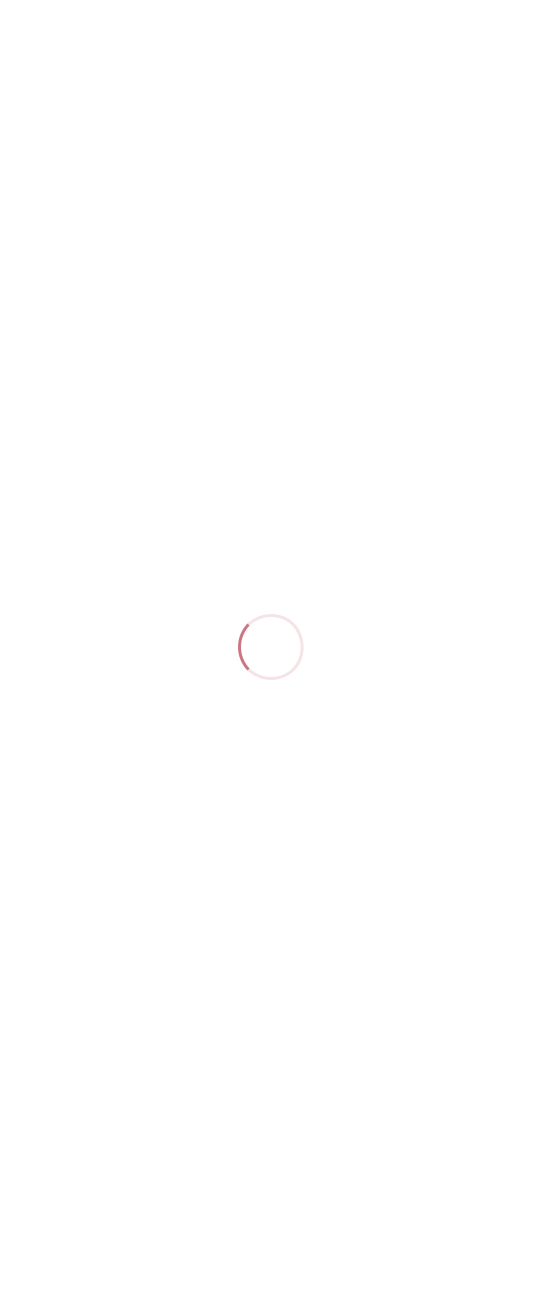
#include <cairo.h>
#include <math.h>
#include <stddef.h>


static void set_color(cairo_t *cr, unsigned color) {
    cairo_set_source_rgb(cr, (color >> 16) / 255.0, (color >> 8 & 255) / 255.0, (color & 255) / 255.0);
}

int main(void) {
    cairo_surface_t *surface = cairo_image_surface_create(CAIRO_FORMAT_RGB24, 542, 1294);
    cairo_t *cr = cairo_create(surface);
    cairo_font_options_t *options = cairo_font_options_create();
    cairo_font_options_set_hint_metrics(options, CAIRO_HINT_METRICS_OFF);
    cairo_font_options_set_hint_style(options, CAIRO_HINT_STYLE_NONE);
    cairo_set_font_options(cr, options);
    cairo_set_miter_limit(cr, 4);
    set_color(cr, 0xFFFFFF);
    cairo_paint(cr);
    cairo_new_path(cr);
    cairo_move_to(cr, 248.5, 624.5);
    cairo_curve_to(cr, 254.5, 619, 262.5, 615.5, 271, 615.5);
    cairo_curve_to(cr, 308.5, 615.5, 314, 670.5, 277, 678);
    cairo_curve_to(cr, 267, 680, 256, 676.5, 248.5, 669.5);
    set_color(cr, 0xF5E4E6);
    cairo_set_line_width(cr, 3);
    cairo_stroke(cr);
    cairo_new_path(cr);
    cairo_move_to(cr, 248.5, 669.5);
    cairo_curve_to(cr, 236.5, 657, 236.5, 637, 248.5, 624.5);
    set_color(cr, 0xCB7684);
    cairo_stroke(cr);
    cairo_surface_write_to_png(surface, "output.png");
    cairo_font_options_destroy(options);
    cairo_destroy(cr);
    cairo_surface_destroy(surface);
    return 0;
}
